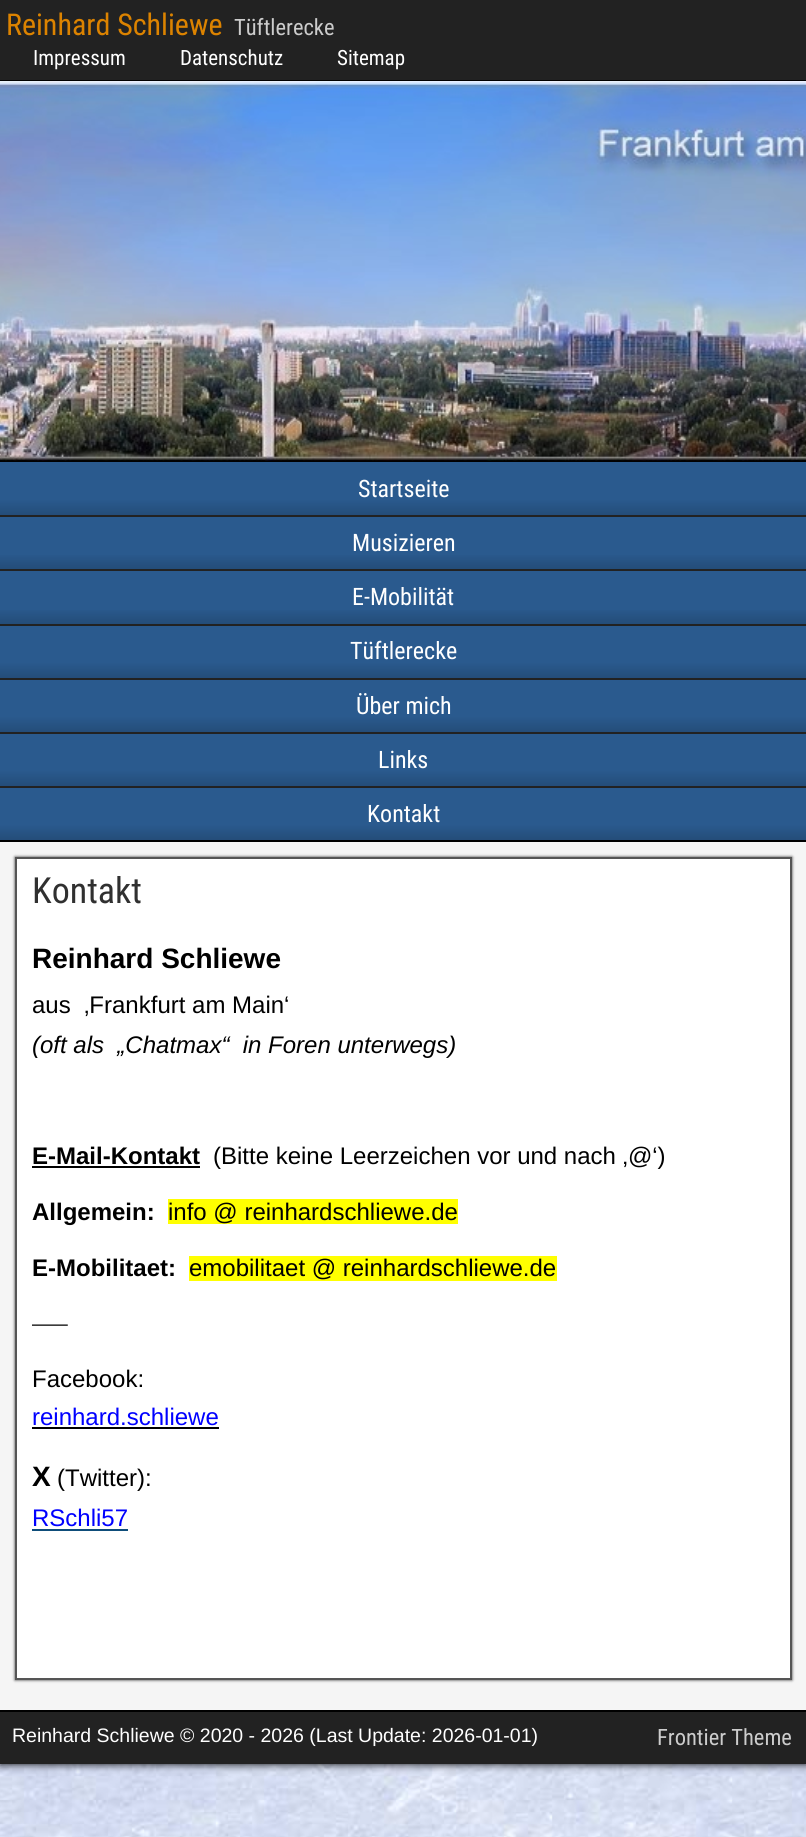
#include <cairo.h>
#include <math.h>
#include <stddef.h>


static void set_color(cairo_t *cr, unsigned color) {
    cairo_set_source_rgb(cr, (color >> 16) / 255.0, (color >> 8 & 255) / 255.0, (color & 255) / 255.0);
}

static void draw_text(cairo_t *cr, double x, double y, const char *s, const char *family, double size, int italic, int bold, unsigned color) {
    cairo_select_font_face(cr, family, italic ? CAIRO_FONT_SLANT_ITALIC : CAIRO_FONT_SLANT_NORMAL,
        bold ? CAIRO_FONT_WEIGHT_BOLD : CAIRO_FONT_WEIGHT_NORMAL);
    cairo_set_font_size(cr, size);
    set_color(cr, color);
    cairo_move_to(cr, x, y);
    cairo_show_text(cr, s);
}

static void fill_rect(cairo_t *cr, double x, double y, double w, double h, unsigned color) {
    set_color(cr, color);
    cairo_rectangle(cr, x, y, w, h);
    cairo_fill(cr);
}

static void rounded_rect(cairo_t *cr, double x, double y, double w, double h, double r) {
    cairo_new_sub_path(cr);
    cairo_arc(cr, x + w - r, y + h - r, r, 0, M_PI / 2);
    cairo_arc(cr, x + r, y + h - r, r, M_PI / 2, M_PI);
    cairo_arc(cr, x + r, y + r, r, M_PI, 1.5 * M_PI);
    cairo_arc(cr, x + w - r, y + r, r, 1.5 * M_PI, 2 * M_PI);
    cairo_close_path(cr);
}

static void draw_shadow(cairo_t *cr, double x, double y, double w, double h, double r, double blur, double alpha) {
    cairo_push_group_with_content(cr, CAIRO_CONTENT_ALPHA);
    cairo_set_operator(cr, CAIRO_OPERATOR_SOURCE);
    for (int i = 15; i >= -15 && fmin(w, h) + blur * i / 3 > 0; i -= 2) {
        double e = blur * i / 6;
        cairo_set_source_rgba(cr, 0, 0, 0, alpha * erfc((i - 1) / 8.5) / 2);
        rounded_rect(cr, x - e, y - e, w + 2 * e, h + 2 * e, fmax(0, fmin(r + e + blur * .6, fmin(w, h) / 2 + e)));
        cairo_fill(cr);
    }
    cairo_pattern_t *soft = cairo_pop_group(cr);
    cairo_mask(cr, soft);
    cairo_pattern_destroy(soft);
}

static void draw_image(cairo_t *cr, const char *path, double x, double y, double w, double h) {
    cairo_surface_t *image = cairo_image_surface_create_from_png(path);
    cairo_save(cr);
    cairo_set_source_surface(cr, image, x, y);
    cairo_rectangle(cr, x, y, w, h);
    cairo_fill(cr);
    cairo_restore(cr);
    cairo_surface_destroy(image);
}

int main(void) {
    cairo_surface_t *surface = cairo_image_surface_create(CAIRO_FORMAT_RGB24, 806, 1837);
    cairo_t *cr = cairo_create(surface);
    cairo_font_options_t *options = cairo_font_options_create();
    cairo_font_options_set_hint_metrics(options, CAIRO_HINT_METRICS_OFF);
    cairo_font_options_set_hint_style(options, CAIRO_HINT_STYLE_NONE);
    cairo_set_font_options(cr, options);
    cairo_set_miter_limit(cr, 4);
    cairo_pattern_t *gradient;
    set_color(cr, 0xFFFFFF);
    cairo_paint(cr);
    draw_image(cr, "assets/img1.png", 0, 1764, 806, 73);
    set_color(cr, 0x000000);
    draw_shadow(cr, 0, 0, 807, 1764, 0, 4.5, 1);
    fill_rect(cr, 0, 0, 806, 80, 0x222222);
    fill_rect(cr, 0, 80, 806, 1, 0x000000);
    draw_text(cr, 6, 35, "Reinhard Schliewe", "Roboto Condensed", 30, 0, 0, 0xDC8300);
    draw_text(cr, 234, 35, "Tüftlerecke", "Roboto Condensed", 22.5, 0, 0, 0xCCCCCC);
    draw_text(cr, 33, 65, "Impressum", "Roboto Condensed", 21, 0, 0, 0xFFFFFF);
    draw_text(cr, 180, 65, "Datenschutz", "Roboto Condensed", 21, 0, 0, 0xFFFFFF);
    draw_text(cr, 337, 65, "Sitemap", "Roboto Condensed", 21, 0, 0, 0xFFFFFF);
    draw_image(cr, "assets/img2.png", 0, 81, 806, 380);
    fill_rect(cr, 0, 461, 806, 1, 0x000000);
    fill_rect(cr, 0, 517, 806, 107, 0x2A5A8E);
    fill_rect(cr, 0, 840, 806, 2, 0x000000);
    gradient = cairo_pattern_create_linear(404, 462, 404, 515);
    cairo_pattern_add_color_stop_rgba(gradient, 0.7, 0.165, 0.353, 0.557, 1);
    cairo_pattern_add_color_stop_rgba(gradient, 1, 0.141, 0.302, 0.475, 1);
    cairo_set_source(cr, gradient);
    cairo_pattern_destroy(gradient);
    cairo_rectangle(cr, 0, 462, 806, 53);
    cairo_fill(cr);
    fill_rect(cr, 0, 515, 806, 2, 0x222222);
    draw_text(cr, 358, 497, "Startseite", "Roboto Condensed", 24, 0, 0, 0xFFFFFF);
    gradient = cairo_pattern_create_linear(404, 516, 404, 569);
    cairo_pattern_add_color_stop_rgba(gradient, 0.7, 0, 0, 0, 0);
    cairo_pattern_add_color_stop_rgba(gradient, 1, 0, 0, 0, 0.15);
    cairo_set_source(cr, gradient);
    cairo_pattern_destroy(gradient);
    cairo_rectangle(cr, 0, 555, 806, 14);
    cairo_fill(cr);
    fill_rect(cr, 0, 569, 806, 2, 0x222222);
    draw_text(cr, 352, 551, "Musizieren", "Roboto Condensed", 24, 0, 0, 0xFFFFFF);
    gradient = cairo_pattern_create_linear(404, 570, 404, 624);
    cairo_pattern_add_color_stop_rgba(gradient, 0.7, 0, 0, 0, 0);
    cairo_pattern_add_color_stop_rgba(gradient, 1, 0, 0, 0, 0.15);
    cairo_set_source(cr, gradient);
    cairo_pattern_destroy(gradient);
    cairo_rectangle(cr, 0, 610, 806, 14);
    cairo_fill(cr);
    fill_rect(cr, 0, 624, 806, 2, 0x222222);
    draw_text(cr, 352, 605, "E-Mobilität", "Roboto Condensed", 24, 0, 0, 0xFFFFFF);
    gradient = cairo_pattern_create_linear(404, 625, 404, 678);
    cairo_pattern_add_color_stop_rgba(gradient, 0.7, 0.165, 0.353, 0.557, 1);
    cairo_pattern_add_color_stop_rgba(gradient, 1, 0.141, 0.302, 0.475, 1);
    cairo_set_source(cr, gradient);
    cairo_pattern_destroy(gradient);
    cairo_rectangle(cr, 0, 626, 806, 52);
    cairo_fill(cr);
    fill_rect(cr, 0, 678, 806, 2, 0x222222);
    draw_text(cr, 350, 659, "Tüftlerecke", "Roboto Condensed", 24, 0, 0, 0xFFFFFF);
    gradient = cairo_pattern_create_linear(404, 679, 404, 732);
    cairo_pattern_add_color_stop_rgba(gradient, 0.7, 0.165, 0.353, 0.557, 1);
    cairo_pattern_add_color_stop_rgba(gradient, 1, 0.141, 0.302, 0.475, 1);
    cairo_set_source(cr, gradient);
    cairo_pattern_destroy(gradient);
    cairo_rectangle(cr, 0, 680, 806, 52);
    cairo_fill(cr);
    fill_rect(cr, 0, 732, 806, 2, 0x222222);
    draw_text(cr, 356, 714, "Über mich", "Roboto Condensed", 24, 0, 0, 0xFFFFFF);
    gradient = cairo_pattern_create_linear(404, 733, 404, 786);
    cairo_pattern_add_color_stop_rgba(gradient, 0.7, 0.165, 0.353, 0.557, 1);
    cairo_pattern_add_color_stop_rgba(gradient, 1, 0.141, 0.302, 0.475, 1);
    cairo_set_source(cr, gradient);
    cairo_pattern_destroy(gradient);
    cairo_rectangle(cr, 0, 734, 806, 52);
    cairo_fill(cr);
    fill_rect(cr, 0, 786, 806, 2, 0x222222);
    draw_text(cr, 378, 768, "Links", "Roboto Condensed", 24, 0, 0, 0xFFFFFF);
    gradient = cairo_pattern_create_linear(404, 788, 404, 840);
    cairo_pattern_add_color_stop_rgba(gradient, 0.7, 0.165, 0.353, 0.557, 1);
    cairo_pattern_add_color_stop_rgba(gradient, 1, 0.141, 0.302, 0.475, 1);
    cairo_set_source(cr, gradient);
    cairo_pattern_destroy(gradient);
    cairo_rectangle(cr, 0, 788, 806, 52);
    cairo_fill(cr);
    draw_text(cr, 367, 822, "Kontakt", "Roboto Condensed", 24, 0, 0, 0xFFFFFF);
    fill_rect(cr, 0, 842, 806, 868, 0xF5F5F5);
    set_color(cr, 0x333333);
    draw_shadow(cr, 15, 857, 777, 823, 0, 1.5, 1);
    set_color(cr, 0xFFFFFF);
    cairo_rectangle(cr, 16, 858, 775, 821);
    cairo_fill_preserve(cr);
    set_color(cr, 0x555555);
    cairo_stroke(cr);
    draw_text(cr, 32, 903, "Kontakt", "Roboto Condensed", 36, 0, 0, 0x303030);
    draw_text(cr, 32, 968, "Reinhard Schliewe", "Liberation Sans", 28, 0, 1, 0x000000);
    draw_text(cr, 32, 1013, "aus  ‚Frankfurt am Main‘", "Liberation Sans", 24, 0, 0, 0x000000);
    draw_text(cr, 32, 1053, "(oft als  „Chatmax“  in Foren unterwegs)", "Liberation Sans", 24, 1, 0, 0x000000);
    draw_text(cr, 32, 1164, "E-Mail-Kontakt", "Liberation Sans", 24, 0, 1, 0x000000);
    fill_rect(cr, 32, 1166, 168, 2, 0x000000);
    draw_text(cr, 213, 1164, "(Bitte keine Leerzeichen vor und nach ‚@‘)", "Liberation Sans", 24, 0, 0, 0x000000);
    draw_text(cr, 32, 1220, "Allgemein:", "Liberation Sans", 24, 0, 1, 0x000000);
    fill_rect(cr, 168, 1199, 290, 25, 0xFFFF00);
    draw_text(cr, 168, 1220, "info @ reinhardschliewe.de", "Liberation Sans", 24, 0, 0, 0x000000);
    draw_text(cr, 32, 1276, "E-Mobilitaet:", "Liberation Sans", 24, 0, 1, 0x000000);
    fill_rect(cr, 189, 1256, 368, 25, 0xFFFF00);
    draw_text(cr, 189, 1276, "emobilitaet @ reinhardschliewe.de", "Liberation Sans", 24, 0, 0, 0x000000);
    draw_text(cr, 32, 1331, "—–", "Arimo", 23, 0, 0, 0x303030);
    draw_text(cr, 32, 1387, "Facebook:", "Liberation Sans", 24, 0, 0, 0x000000);
    draw_text(cr, 32, 1425, "reinhard.schliewe", "Liberation Sans", 24, 0, 0, 0x0000FF);
    fill_rect(cr, 32, 1427, 187, 2, 0x000000);
    draw_text(cr, 32, 1486, "X", "Liberation Sans", 28, 0, 1, 0x000000);
    draw_text(cr, 57, 1486, "(Twitter):", "Liberation Sans", 24, 0, 0, 0x000000);
    draw_text(cr, 32, 1526, "RSchli57", "Liberation Sans", 24, 0, 0, 0x0000FF);
    fill_rect(cr, 32, 1529, 96, 2, 0x0E4D7A);
    fill_rect(cr, 0, 1712, 806, 52, 0x222222);
    fill_rect(cr, 0, 1710, 806, 2, 0x000000);
    draw_text(cr, 12, 1742, "Reinhard Schliewe © 2020 - 2026 (Last Update: 2026-01-01)", "Liberation Sans", 19.5, 0, 0, 0xFFFFFF);
    draw_text(cr, 657, 1745, "Frontier Theme", "Roboto Condensed", 22.5, 0, 0, 0xCCCCCC);
    cairo_surface_write_to_png(surface, "output.png");
    cairo_font_options_destroy(options);
    cairo_destroy(cr);
    cairo_surface_destroy(surface);
    return 0;
}
